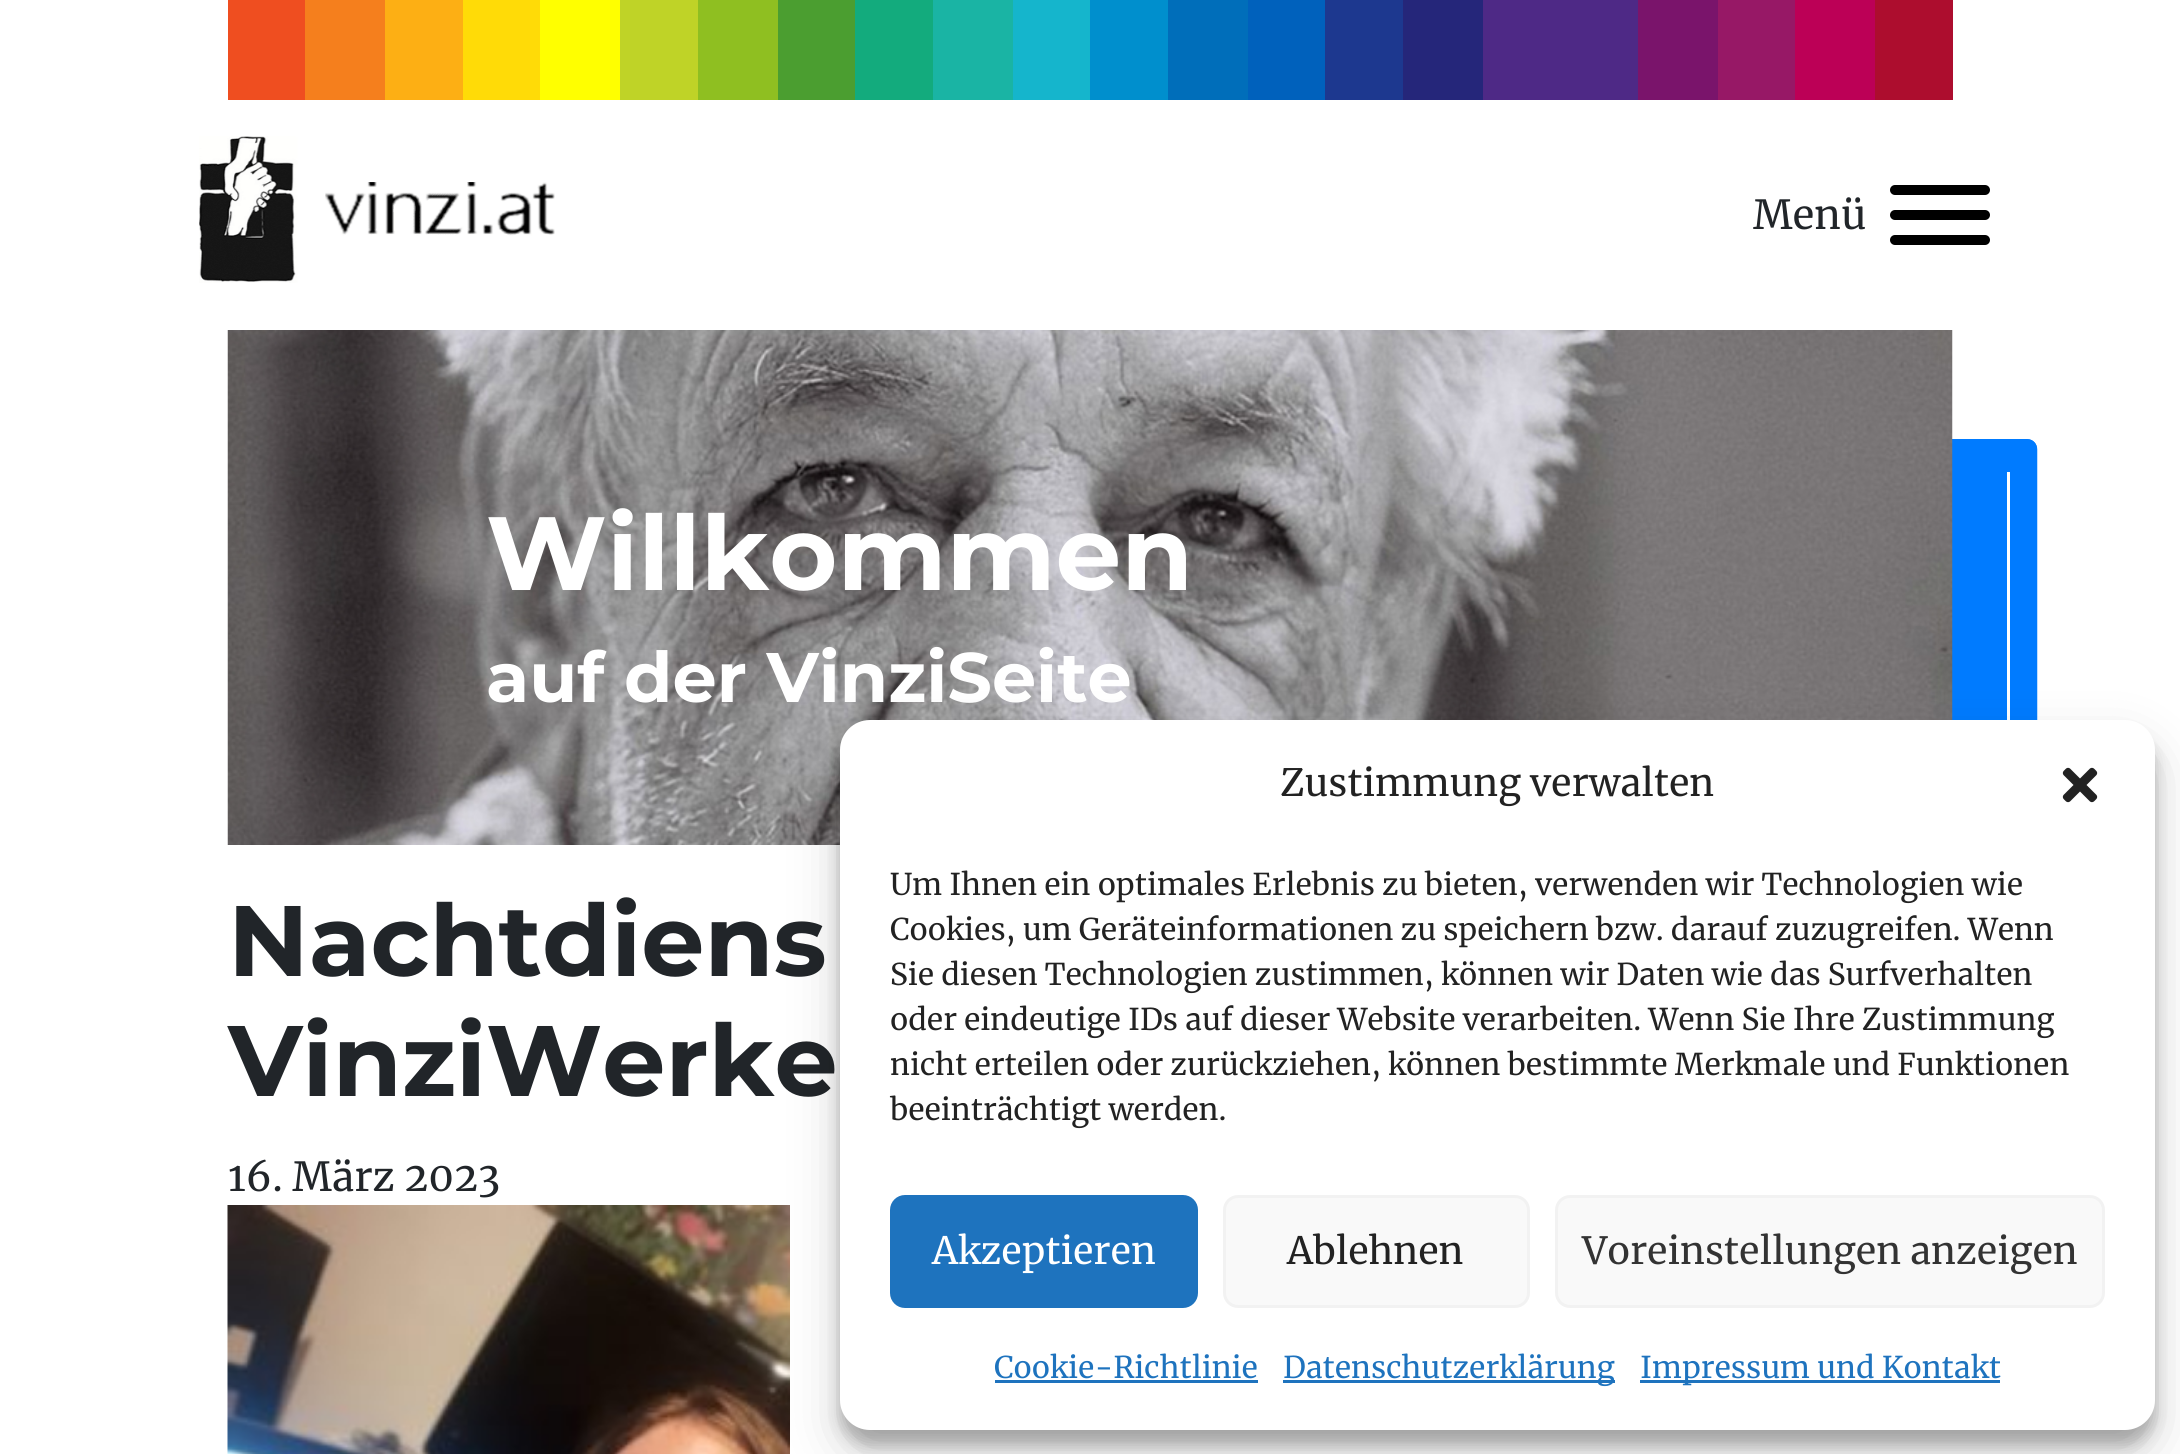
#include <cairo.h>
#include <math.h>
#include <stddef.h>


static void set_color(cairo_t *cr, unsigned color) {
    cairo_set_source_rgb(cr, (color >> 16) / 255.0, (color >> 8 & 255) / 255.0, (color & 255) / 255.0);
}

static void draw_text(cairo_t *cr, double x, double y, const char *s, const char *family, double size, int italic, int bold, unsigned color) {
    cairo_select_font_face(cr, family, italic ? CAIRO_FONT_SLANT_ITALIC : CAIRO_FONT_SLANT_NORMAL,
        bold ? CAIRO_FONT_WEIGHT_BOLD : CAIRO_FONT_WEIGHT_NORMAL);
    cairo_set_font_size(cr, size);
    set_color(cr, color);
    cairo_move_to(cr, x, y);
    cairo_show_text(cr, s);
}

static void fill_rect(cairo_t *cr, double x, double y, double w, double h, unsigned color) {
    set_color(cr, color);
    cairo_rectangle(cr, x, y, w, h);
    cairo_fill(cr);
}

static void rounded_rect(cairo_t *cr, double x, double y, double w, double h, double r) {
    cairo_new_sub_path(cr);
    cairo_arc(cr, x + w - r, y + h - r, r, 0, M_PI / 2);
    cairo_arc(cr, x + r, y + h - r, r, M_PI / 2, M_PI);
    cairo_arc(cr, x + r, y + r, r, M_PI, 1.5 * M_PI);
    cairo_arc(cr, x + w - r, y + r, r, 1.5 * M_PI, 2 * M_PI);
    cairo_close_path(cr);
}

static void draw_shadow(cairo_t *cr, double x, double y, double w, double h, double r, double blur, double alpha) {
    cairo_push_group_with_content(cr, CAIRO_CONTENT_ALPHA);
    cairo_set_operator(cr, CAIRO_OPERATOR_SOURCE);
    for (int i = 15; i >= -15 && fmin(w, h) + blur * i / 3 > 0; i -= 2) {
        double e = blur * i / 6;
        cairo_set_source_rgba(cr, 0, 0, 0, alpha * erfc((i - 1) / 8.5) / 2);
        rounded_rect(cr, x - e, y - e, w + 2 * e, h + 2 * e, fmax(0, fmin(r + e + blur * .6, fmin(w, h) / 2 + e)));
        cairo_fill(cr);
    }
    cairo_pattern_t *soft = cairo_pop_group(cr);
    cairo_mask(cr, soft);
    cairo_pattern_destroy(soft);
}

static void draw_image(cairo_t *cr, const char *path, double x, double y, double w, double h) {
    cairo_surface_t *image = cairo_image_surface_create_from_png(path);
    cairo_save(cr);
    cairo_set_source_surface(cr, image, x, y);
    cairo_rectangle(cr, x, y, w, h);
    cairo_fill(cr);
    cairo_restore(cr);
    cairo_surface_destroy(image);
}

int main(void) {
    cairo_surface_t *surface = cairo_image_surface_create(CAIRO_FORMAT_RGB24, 2180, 1454);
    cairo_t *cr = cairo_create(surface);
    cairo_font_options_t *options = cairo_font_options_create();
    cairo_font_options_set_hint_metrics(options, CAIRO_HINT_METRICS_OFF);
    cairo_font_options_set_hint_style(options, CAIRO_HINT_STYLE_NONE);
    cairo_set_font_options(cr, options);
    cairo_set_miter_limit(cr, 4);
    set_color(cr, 0xFFFFFF);
    cairo_paint(cr);
    fill_rect(cr, 228, 0, 77, 100, 0xEF4E20);
    fill_rect(cr, 305, 0, 80, 100, 0xF57F1D);
    fill_rect(cr, 385, 0, 78, 100, 0xFDAF14);
    fill_rect(cr, 463, 0, 77, 100, 0xFFDB07);
    fill_rect(cr, 540, 0, 80, 100, 0xFFFF00);
    fill_rect(cr, 620, 0, 78, 100, 0xBFD327);
    fill_rect(cr, 698, 0, 80, 100, 0x8FBF21);
    fill_rect(cr, 778, 0, 77, 100, 0x4B9E30);
    fill_rect(cr, 855, 0, 78, 100, 0x13AB7D);
    fill_rect(cr, 933, 0, 80, 100, 0x1AB4A4);
    fill_rect(cr, 1013, 0, 77, 100, 0x15B5CC);
    fill_rect(cr, 1090, 0, 78, 100, 0x008FCD);
    fill_rect(cr, 1168, 0, 80, 100, 0x006EBA);
    fill_rect(cr, 1248, 0, 77, 100, 0x0061BC);
    fill_rect(cr, 1325, 0, 78, 100, 0x1D388F);
    fill_rect(cr, 1403, 0, 80, 100, 0x25267A);
    fill_rect(cr, 1483, 0, 155, 100, 0x4E2986);
    fill_rect(cr, 1638, 0, 80, 100, 0x7A146B);
    fill_rect(cr, 1718, 0, 77, 100, 0x971866);
    fill_rect(cr, 1795, 0, 80, 100, 0xBC0056);
    fill_rect(cr, 1875, 0, 78, 100, 0xAD0D2E);
    draw_image(cr, "assets/img1.png", 199, 136, 356, 147);
    draw_text(cr, 1753, 229, "Menü", "Merriweather", 40, 0, 0, 0x212529);
    set_color(cr, 0x000000);
    rounded_rect(cr, 1890, 185, 100, 10, 5);
    cairo_fill(cr);
    rounded_rect(cr, 1890, 210, 100, 10, 5);
    cairo_fill(cr);
    rounded_rect(cr, 1890, 235, 100, 10, 5);
    cairo_fill(cr);
    set_color(cr, 0x007BFF);
    cairo_new_path(cr);
    cairo_move_to(cr, 1942, 846);
    cairo_line_to(cr, 1942, 449);
    cairo_curve_to(cr, 1942, 444, 1947, 439, 1952, 439);
    cairo_line_to(cr, 2027, 439);
    cairo_curve_to(cr, 2033, 439, 2037, 444, 2037, 449);
    cairo_line_to(cr, 2037, 846);
    cairo_curve_to(cr, 2037, 851, 2033, 856, 2027, 856);
    cairo_line_to(cr, 1952, 856);
    cairo_curve_to(cr, 1947, 856, 1942, 851, 1942, 846);
    cairo_close_path(cr);
    cairo_fill(cr);
    cairo_new_path(cr);
    cairo_move_to(cr, 1943.5, 845.5);
    cairo_line_to(cr, 1943.5, 449.5);
    cairo_curve_to(cr, 1943.5, 444.5, 1947.5, 440.5, 1952.5, 440.5);
    cairo_line_to(cr, 2027.5, 440.5);
    cairo_curve_to(cr, 2032.5, 440.5, 2036, 444.5, 2036, 449.5);
    cairo_line_to(cr, 2036, 845.5);
    cairo_curve_to(cr, 2036, 850.5, 2032.5, 854.5, 2027.5, 854.5);
    cairo_line_to(cr, 1952.5, 854.5);
    cairo_curve_to(cr, 1947.5, 854.5, 1943.5, 850.5, 1943.5, 845.5);
    cairo_close_path(cr);
    cairo_set_line_width(cr, 2.5);
    cairo_stroke(cr);
    draw_image(cr, "assets/img2.png", 227, 330, 1726, 515);
    draw_text(cr, 486, 590, "Willkommen", "Montserrat", 104, 0, 1, 0xFFFFFF);
    draw_text(cr, 486, 702, "auf der VinziSeite", "Montserrat", 70, 0, 1, 0xFFFFFF);
    fill_rect(cr, 2007, 472, 3, 248, 0xFFFFFF);
    fill_rect(cr, 1942, 845, 11, 11, 0xFFFFFF);
    draw_text(cr, 228, 976, "Nachtdiens", "Montserrat", 100, 0, 1, 0x212529);
    draw_text(cr, 228, 1096, "VinziWerke", "Montserrat", 100, 0, 1, 0x212529);
    draw_text(cr, 228, 1191, "16. März 2023", "Merriweather", 40, 0, 0, 0x212529);
    draw_image(cr, "assets/img3.png", 227, 1205, 563, 249);
    set_color(cr, 0x000000);
    draw_shadow(cr, 840, 735, 1315, 710, 30, 7.5, 0.23);
    draw_shadow(cr, 840, 745, 1315, 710, 30, 25, 0.19);
    set_color(cr, 0xFFFFFF);
    rounded_rect(cr, 840, 720, 1315, 710, 30);
    cairo_fill(cr);
    draw_text(cr, 1280, 796, "Zustimmung verwalten", "Merriweather", 37.5, 0, 0, 0x222222);
    draw_image(cr, "assets/img4.png", 2062, 767, 36, 36);
    draw_text(cr, 890, 895, "Um Ihnen ein optimales Erlebnis zu bieten, verwenden wir Technologien wie", "Merriweather", 30, 0, 0, 0x222222);
    draw_text(cr, 890, 940, "Cookies, um Geräteinformationen zu speichern bzw. darauf zuzugreifen. Wenn", "Merriweather", 30, 0, 0, 0x222222);
    draw_text(cr, 890, 985, "Sie diesen Technologien zustimmen, können wir Daten wie das Surfverhalten", "Merriweather", 30, 0, 0, 0x222222);
    draw_text(cr, 890, 1030, "oder eindeutige IDs auf dieser Website verarbeiten. Wenn Sie Ihre Zustimmung", "Merriweather", 30, 0, 0, 0x222222);
    draw_text(cr, 890, 1075, "nicht erteilen oder zurückziehen, können bestimmte Merkmale und Funktionen", "Merriweather", 30, 0, 0, 0x222222);
    draw_text(cr, 890, 1120, "beeinträchtigt werden.", "Merriweather", 30, 0, 0, 0x222222);
    set_color(cr, 0x1E73BE);
    rounded_rect(cr, 891.5, 1196.5, 305, 110, 13.5);
    cairo_fill_preserve(cr);
    cairo_set_line_width(cr, 3);
    cairo_stroke(cr);
    draw_text(cr, 932, 1264, "Akzeptieren", "Merriweather", 37.5, 0, 0, 0xFFFFFF);
    set_color(cr, 0xF9F9F9);
    rounded_rect(cr, 1224.5, 1196.5, 304, 110, 13.5);
    cairo_fill_preserve(cr);
    set_color(cr, 0xF2F2F2);
    cairo_stroke(cr);
    draw_text(cr, 1287, 1264, "Ablehnen", "Merriweather", 37.5, 0, 0, 0x222222);
    set_color(cr, 0xF9F9F9);
    rounded_rect(cr, 1556.5, 1196.5, 547, 110, 13.5);
    cairo_fill_preserve(cr);
    set_color(cr, 0xF2F2F2);
    cairo_stroke(cr);
    draw_text(cr, 1582, 1264, "Voreinstellungen anzeigen", "Merriweather", 37.5, 0, 0, 0x333333);
    draw_text(cr, 994, 1378, "Cookie-Richtlinie", "Merriweather", 30, 0, 0, 0x1E73BE);
    fill_rect(cr, 995, 1380, 263, 3, 0x1E73BE);
    fill_rect(cr, 1283, 1380, 332, 3, 0x1E73BE);
    draw_text(cr, 1283, 1378, "Datenschutzerklärung", "Merriweather", 30, 0, 0, 0x1E73BE);
    fill_rect(cr, 1640, 1380, 360, 3, 0x1E73BE);
    draw_text(cr, 1640, 1378, "Impressum und Kontakt", "Merriweather", 30, 0, 0, 0x1E73BE);
    cairo_surface_write_to_png(surface, "output.png");
    cairo_font_options_destroy(options);
    cairo_destroy(cr);
    cairo_surface_destroy(surface);
    return 0;
}
